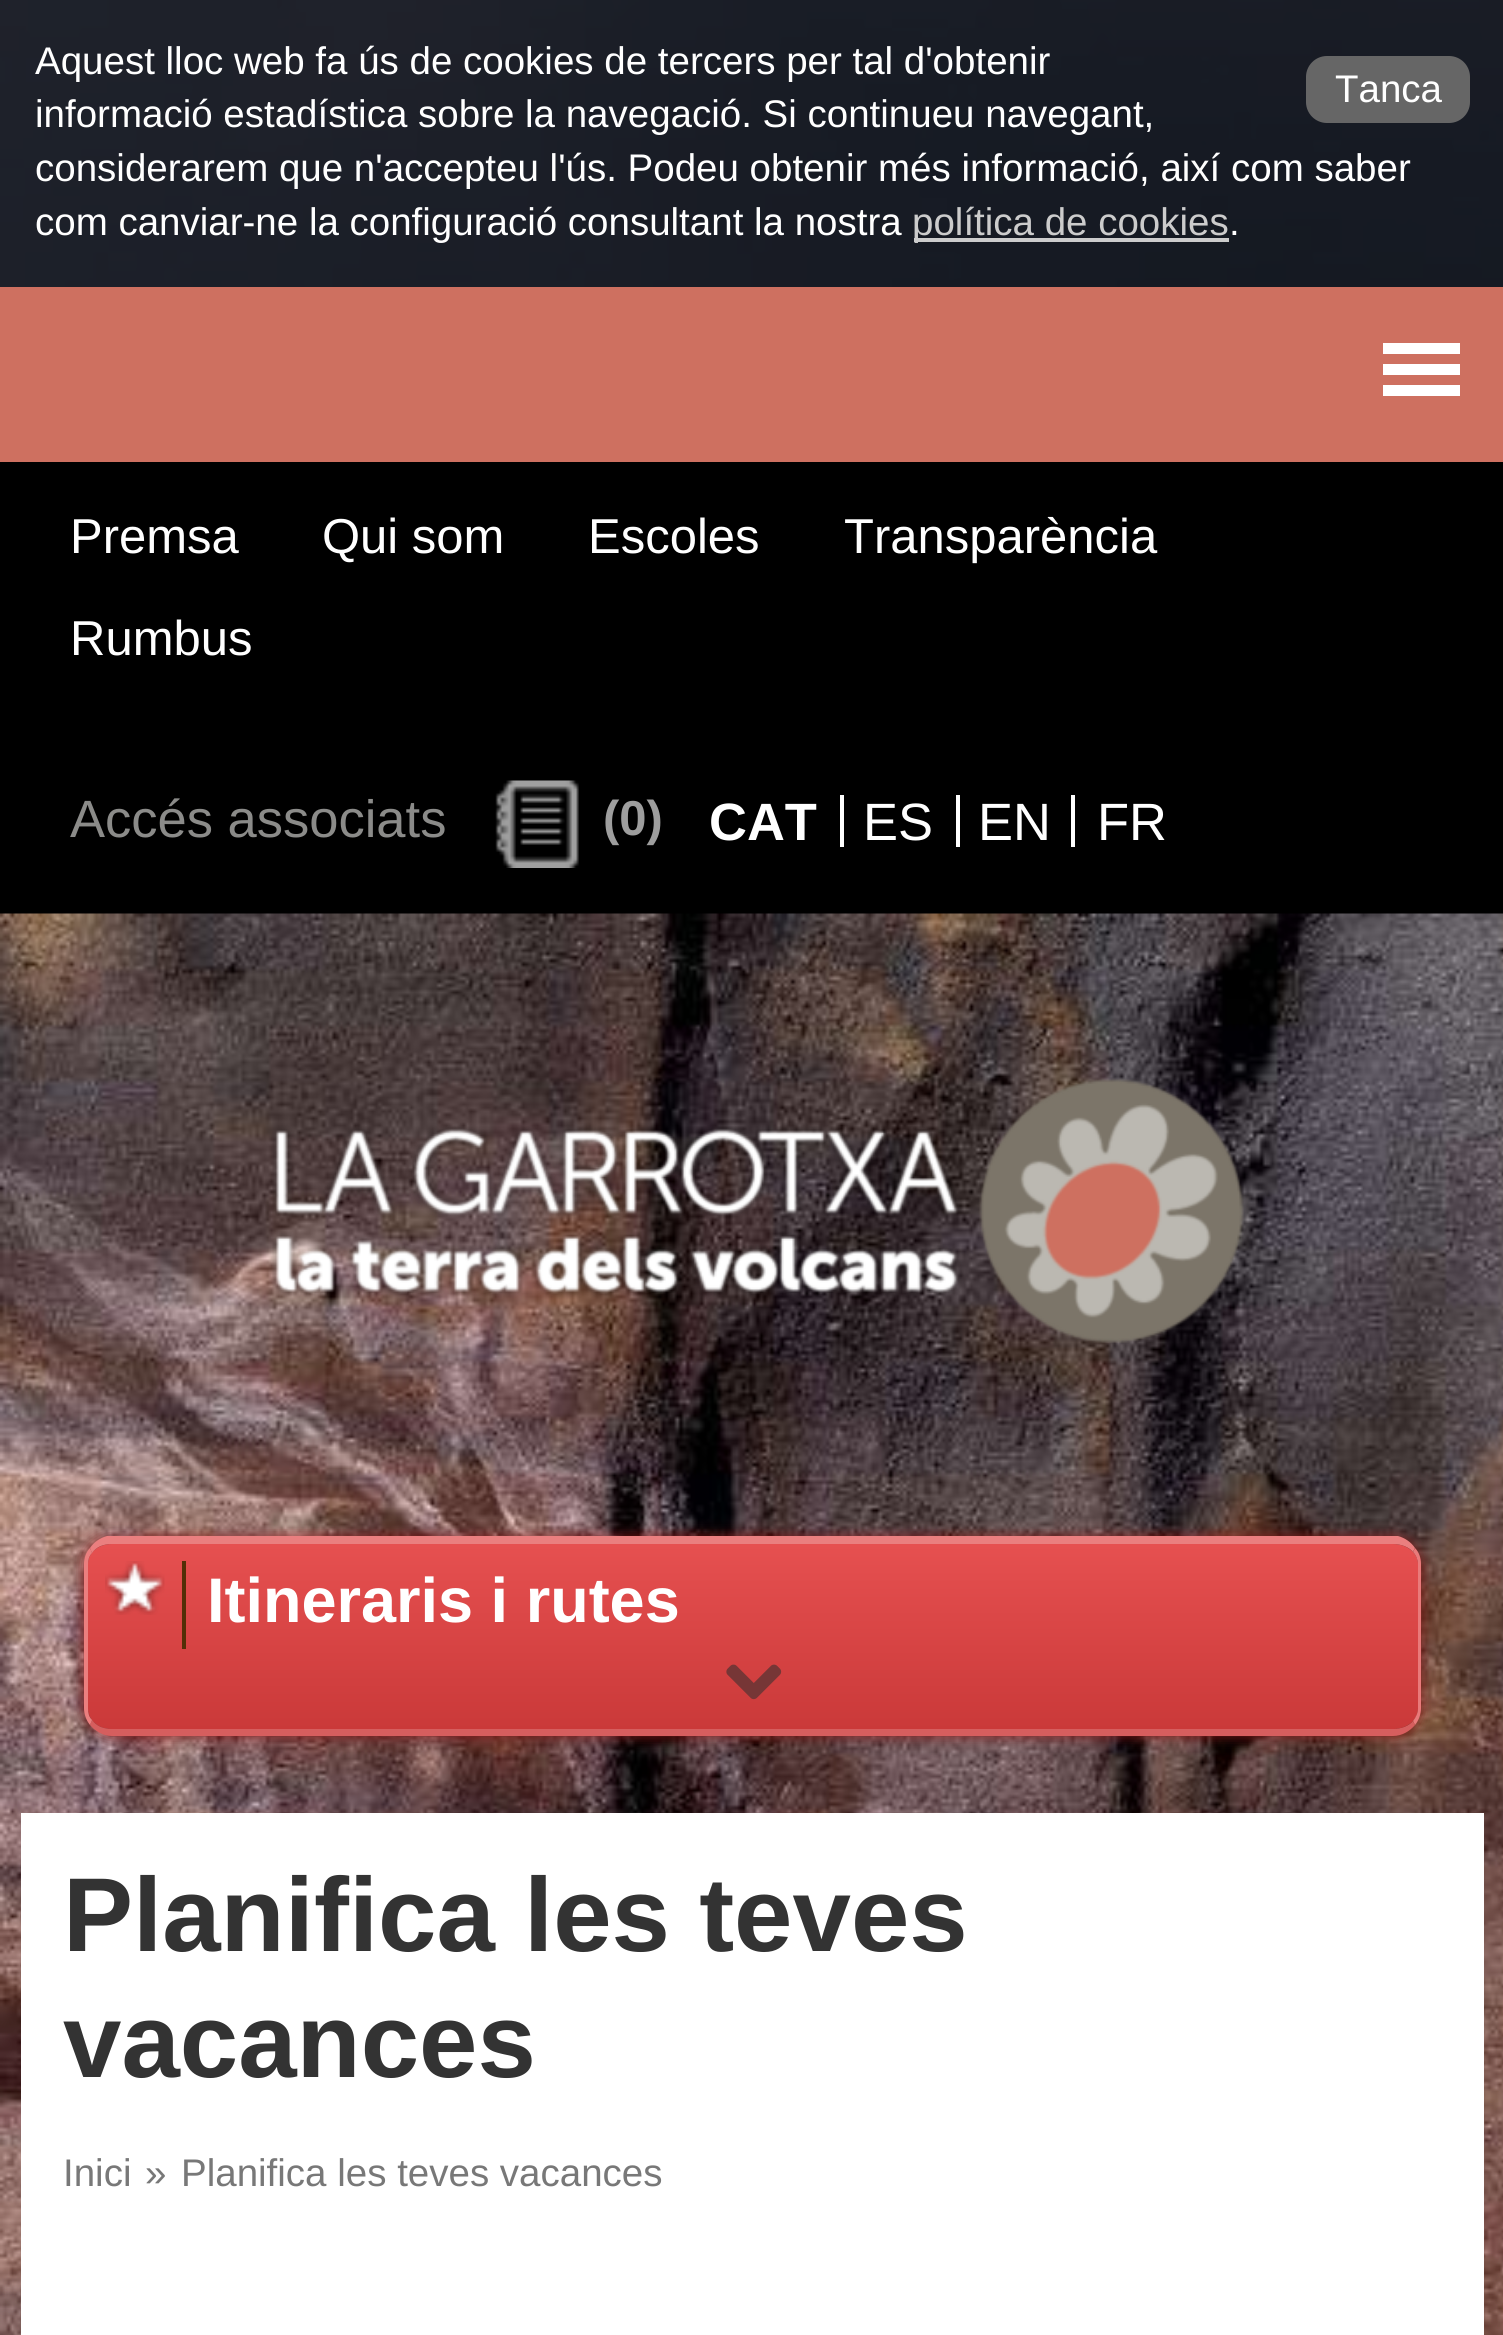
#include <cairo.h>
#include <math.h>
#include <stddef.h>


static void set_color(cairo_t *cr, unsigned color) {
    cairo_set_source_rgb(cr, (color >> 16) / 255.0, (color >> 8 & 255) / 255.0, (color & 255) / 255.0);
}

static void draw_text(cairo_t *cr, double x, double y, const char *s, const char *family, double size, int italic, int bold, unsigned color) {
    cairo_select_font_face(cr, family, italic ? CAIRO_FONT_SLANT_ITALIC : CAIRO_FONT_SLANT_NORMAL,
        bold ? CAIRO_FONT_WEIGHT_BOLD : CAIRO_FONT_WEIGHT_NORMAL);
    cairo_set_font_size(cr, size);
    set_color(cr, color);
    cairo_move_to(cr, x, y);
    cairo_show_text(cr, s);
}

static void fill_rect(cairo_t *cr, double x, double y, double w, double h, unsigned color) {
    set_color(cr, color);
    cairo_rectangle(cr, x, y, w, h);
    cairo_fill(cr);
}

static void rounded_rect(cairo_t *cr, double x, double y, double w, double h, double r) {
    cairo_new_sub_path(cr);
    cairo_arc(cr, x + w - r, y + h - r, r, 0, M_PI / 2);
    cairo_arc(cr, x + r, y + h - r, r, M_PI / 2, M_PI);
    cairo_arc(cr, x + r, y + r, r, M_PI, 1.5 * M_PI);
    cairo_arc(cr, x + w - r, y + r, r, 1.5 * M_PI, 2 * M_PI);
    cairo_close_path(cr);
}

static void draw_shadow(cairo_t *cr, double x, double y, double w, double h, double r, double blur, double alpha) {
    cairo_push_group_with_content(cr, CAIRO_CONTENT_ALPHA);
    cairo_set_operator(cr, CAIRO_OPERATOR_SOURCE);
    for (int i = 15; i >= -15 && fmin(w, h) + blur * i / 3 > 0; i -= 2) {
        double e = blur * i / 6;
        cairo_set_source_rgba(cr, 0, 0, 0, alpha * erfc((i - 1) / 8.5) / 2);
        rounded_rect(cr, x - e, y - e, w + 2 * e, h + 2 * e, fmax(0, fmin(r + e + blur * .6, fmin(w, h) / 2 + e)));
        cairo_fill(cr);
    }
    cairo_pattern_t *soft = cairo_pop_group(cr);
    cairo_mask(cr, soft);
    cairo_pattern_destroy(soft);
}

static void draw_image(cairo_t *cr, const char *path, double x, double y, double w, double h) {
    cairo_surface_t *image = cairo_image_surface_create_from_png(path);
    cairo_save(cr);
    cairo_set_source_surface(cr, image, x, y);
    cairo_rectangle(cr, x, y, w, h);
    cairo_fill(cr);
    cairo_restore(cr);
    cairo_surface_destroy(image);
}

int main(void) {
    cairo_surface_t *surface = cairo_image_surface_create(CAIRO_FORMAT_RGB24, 1503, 2335);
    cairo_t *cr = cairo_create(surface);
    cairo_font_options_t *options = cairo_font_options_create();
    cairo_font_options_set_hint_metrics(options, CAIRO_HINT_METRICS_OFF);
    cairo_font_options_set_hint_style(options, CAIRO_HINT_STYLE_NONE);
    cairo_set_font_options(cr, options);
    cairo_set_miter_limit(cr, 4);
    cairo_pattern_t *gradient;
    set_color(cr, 0xFFFFFF);
    cairo_paint(cr);
    draw_image(cr, "assets/img1.png", 0, 0, 1503, 287);
    cairo_set_source_rgba(cr, 0, 0, 0, 0.8);
    cairo_rectangle(cr, 0, 0, 1503, 287);
    cairo_fill(cr);
    draw_text(cr, 35, 74, "Aquest lloc web fa ús de cookies de tercers per tal d'obtenir", "Liberation Sans", 38.5, 0, 0, 0xFFFFFF);
    set_color(cr, 0x666666);
    rounded_rect(cr, 1306, 56, 164, 67, 21);
    cairo_fill(cr);
    draw_text(cr, 1335, 102, "Tanca", "Liberation Sans", 38.5, 0, 0, 0xFFFFFF);
    draw_text(cr, 35, 127, "informació estadística sobre la navegació. Si continueu navegant,", "Liberation Sans", 38.5, 0, 0, 0xFFFFFF);
    draw_text(cr, 35, 181, "considerarem que n'accepteu l'ús. Podeu obtenir més informació, així com saber", "Liberation Sans", 38.5, 0, 0, 0xFFFFFF);
    draw_text(cr, 35, 235, "com canviar-ne la configuració consultant la nostra", "Liberation Sans", 38.5, 0, 0, 0xFFFFFF);
    fill_rect(cr, 914, 238, 315, 4, 0xCCCCCC);
    draw_text(cr, 912, 235, "política de cookies", "Liberation Sans", 38.5, 0, 0, 0xCCCCCC);
    draw_text(cr, 1229, 235, ".", "Liberation Sans", 38.5, 0, 0, 0xFFFFFF);
    fill_rect(cr, 0, 287, 1503, 175, 0xCE7060);
    fill_rect(cr, 1383, 343, 77, 11, 0xFFFFFF);
    fill_rect(cr, 1383, 364, 77, 11, 0xFFFFFF);
    fill_rect(cr, 1383, 385, 77, 11, 0xFFFFFF);
    fill_rect(cr, 0, 462, 1503, 452, 0x000000);
    draw_text(cr, 70, 553, "Premsa", "Liberation Sans", 49, 0, 0, 0xFFFFFF);
    draw_text(cr, 322, 553, "Qui som", "Liberation Sans", 49, 0, 0, 0xFFFFFF);
    draw_text(cr, 588, 553, "Escoles", "Liberation Sans", 49, 0, 0, 0xFFFFFF);
    draw_text(cr, 844, 553, "Transparència", "Liberation Sans", 49, 0, 0, 0xFFFFFF);
    draw_text(cr, 70, 655, "Rumbus", "Liberation Sans", 49, 0, 0, 0xFFFFFF);
    draw_text(cr, 70, 837, "Accés associats", "Liberation Sans", 52.5, 0, 0, 0x8B8B89);
    draw_image(cr, "assets/img2.png", 495, 780, 84, 88);
    draw_text(cr, 603, 835, "(0)", "Liberation Sans", 49, 0, 1, 0x9E9E9E);
    draw_text(cr, 709, 840, "CAT", "Liberation Sans", 52.5, 0, 1, 0xFFFFFF);
    fill_rect(cr, 840, 795, 4, 52, 0xFFFFFF);
    draw_text(cr, 863, 840, "ES", "Liberation Sans", 52.5, 0, 0, 0xFFFFFF);
    fill_rect(cr, 956, 795, 4, 52, 0xFFFFFF);
    draw_text(cr, 978, 840, "EN", "Liberation Sans", 52.5, 0, 0, 0xFFFFFF);
    fill_rect(cr, 1071, 795, 4, 52, 0xFFFFFF);
    draw_text(cr, 1097, 840, "FR", "Liberation Sans", 52.5, 0, 0, 0xFFFFFF);
    draw_image(cr, "assets/img3.png", 0, 913, 1503, 1422);
    draw_image(cr, "assets/img4.png", 270, 1078, 974, 265);
    set_color(cr, 0x8A1919);
    draw_shadow(cr, 84, 1537, 1337, 199, 28, 7, 1);
    gradient = cairo_pattern_create_linear(753, 1544, 753, 1729);
    cairo_pattern_add_color_stop_rgba(gradient, 0, 0.902, 0.314, 0.314, 1);
    cairo_pattern_add_color_stop_rgba(gradient, 1, 0.792, 0.224, 0.224, 1);
    cairo_set_source(cr, gradient);
    cairo_pattern_destroy(gradient);
    cairo_new_path(cr);
    cairo_move_to(cr, 112, 1544);
    cairo_line_to(cr, 1393, 1544);
    cairo_curve_to(cr, 1407, 1544, 1418, 1553, 1418, 1564);
    cairo_line_to(cr, 1418, 1708);
    cairo_curve_to(cr, 1418, 1720, 1407, 1729, 1393, 1729);
    cairo_line_to(cr, 112, 1729);
    cairo_curve_to(cr, 98, 1729, 88, 1720, 88, 1708);
    cairo_line_to(cr, 88, 1564);
    cairo_curve_to(cr, 88, 1553, 98, 1544, 112, 1544);
    cairo_close_path(cr);
    cairo_fill(cr);
    set_color(cr, 0xEA7F7F);
    cairo_new_path(cr);
    cairo_move_to(cr, 112, 1544);
    cairo_curve_to(cr, 103, 1544, 96, 1547, 92, 1553);
    cairo_line_to(cr, 90, 1548);
    cairo_curve_to(cr, 94, 1542, 100, 1538, 107, 1536);
    cairo_line_to(cr, 1398, 1536);
    cairo_curve_to(cr, 1405, 1538, 1411, 1542, 1415, 1548);
    cairo_line_to(cr, 1413, 1552);
    cairo_curve_to(cr, 1409, 1547, 1401, 1544, 1393, 1544);
    cairo_close_path(cr);
    cairo_fill(cr);
    set_color(cr, 0xE97A7A);
    cairo_new_path(cr);
    cairo_move_to(cr, 1421, 1708);
    cairo_line_to(cr, 1421, 1564);
    cairo_curve_to(cr, 1421, 1558, 1419, 1552, 1415, 1548);
    cairo_line_to(cr, 1413, 1552);
    cairo_curve_to(cr, 1416, 1555, 1418, 1560, 1418, 1564);
    cairo_line_to(cr, 1418, 1708);
    cairo_curve_to(cr, 1418, 1713, 1416, 1717, 1413, 1721);
    cairo_line_to(cr, 1415, 1725);
    cairo_curve_to(cr, 1419, 1720, 1421, 1714, 1421, 1708);
    cairo_close_path(cr);
    cairo_fill(cr);
    set_color(cr, 0xD65E5E);
    cairo_new_path(cr);
    cairo_move_to(cr, 112, 1736);
    cairo_line_to(cr, 1393, 1736);
    cairo_curve_to(cr, 1402, 1736, 1410, 1731, 1415, 1725);
    cairo_line_to(cr, 1413, 1721);
    cairo_curve_to(cr, 1409, 1726, 1401, 1729, 1393, 1729);
    cairo_line_to(cr, 112, 1729);
    cairo_curve_to(cr, 103, 1729, 96, 1726, 92, 1720);
    cairo_line_to(cr, 90, 1725);
    cairo_curve_to(cr, 95, 1731, 103, 1736, 112, 1736);
    cairo_close_path(cr);
    cairo_fill(cr);
    set_color(cr, 0xEB7F7F);
    cairo_new_path(cr);
    cairo_move_to(cr, 84, 1564);
    cairo_line_to(cr, 84, 1708);
    cairo_curve_to(cr, 84, 1714, 86, 1720, 90, 1725);
    cairo_line_to(cr, 92, 1720);
    cairo_curve_to(cr, 89, 1717, 88, 1713, 88, 1708);
    cairo_line_to(cr, 88, 1564);
    cairo_curve_to(cr, 88, 1560, 89, 1556, 92, 1553);
    cairo_line_to(cr, 90, 1548);
    cairo_curve_to(cr, 86, 1552, 84, 1558, 84, 1564);
    cairo_close_path(cr);
    cairo_fill(cr);
    draw_image(cr, "assets/img5.png", 105, 1561, 60, 54);
    fill_rect(cr, 182, 1561, 4, 88, 0x532E07);
    draw_text(cr, 207, 1622, "Itineraris i rutes", "Liberation Sans", 63, 0, 1, 0xFFFFFF);
    draw_image(cr, "assets/img6.png", 726, 1664, 56, 36);
    fill_rect(cr, 21, 1813, 1463, 522, 0xFFFFFF);
    draw_text(cr, 63, 1951, "Planifica les teves", "Liberation Sans", 105, 0, 1, 0x333333);
    draw_text(cr, 63, 2077, "vacances", "Liberation Sans", 105, 0, 1, 0x333333);
    draw_text(cr, 63, 2186, "Inici", "Liberation Sans", 38.5, 0, 0, 0x787878);
    draw_text(cr, 145, 2186, "»", "Liberation Sans", 38.5, 0, 0, 0x787878);
    draw_text(cr, 181, 2186, "Planifica les teves vacances", "Liberation Sans", 38.5, 0, 0, 0x787878);
    cairo_surface_write_to_png(surface, "output.png");
    cairo_font_options_destroy(options);
    cairo_destroy(cr);
    cairo_surface_destroy(surface);
    return 0;
}
